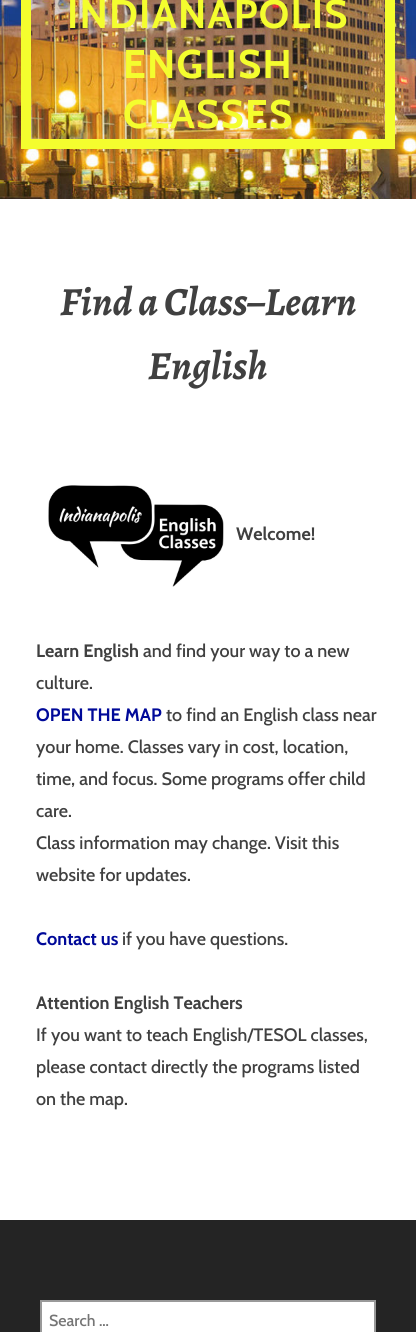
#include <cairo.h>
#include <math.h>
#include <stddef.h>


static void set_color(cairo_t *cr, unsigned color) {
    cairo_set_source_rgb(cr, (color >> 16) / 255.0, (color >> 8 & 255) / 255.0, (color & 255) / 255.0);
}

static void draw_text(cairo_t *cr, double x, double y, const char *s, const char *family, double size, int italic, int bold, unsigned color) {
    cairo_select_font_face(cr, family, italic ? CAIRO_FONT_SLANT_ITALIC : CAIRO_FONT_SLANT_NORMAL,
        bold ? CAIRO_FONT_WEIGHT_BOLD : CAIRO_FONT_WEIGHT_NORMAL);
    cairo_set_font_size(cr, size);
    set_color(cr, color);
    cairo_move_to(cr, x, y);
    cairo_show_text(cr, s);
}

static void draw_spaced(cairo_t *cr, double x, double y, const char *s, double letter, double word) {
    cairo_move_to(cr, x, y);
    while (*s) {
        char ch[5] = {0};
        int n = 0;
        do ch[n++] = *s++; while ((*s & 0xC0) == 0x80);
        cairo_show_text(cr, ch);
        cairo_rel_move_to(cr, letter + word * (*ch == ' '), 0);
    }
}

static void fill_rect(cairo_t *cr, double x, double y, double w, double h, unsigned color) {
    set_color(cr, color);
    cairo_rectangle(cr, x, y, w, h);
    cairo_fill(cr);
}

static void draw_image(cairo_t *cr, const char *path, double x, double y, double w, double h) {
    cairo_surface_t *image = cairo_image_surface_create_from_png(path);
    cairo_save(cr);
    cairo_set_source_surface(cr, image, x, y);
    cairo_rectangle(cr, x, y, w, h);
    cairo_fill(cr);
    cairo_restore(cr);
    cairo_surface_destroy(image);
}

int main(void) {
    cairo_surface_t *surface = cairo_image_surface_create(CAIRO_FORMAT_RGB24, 416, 1332);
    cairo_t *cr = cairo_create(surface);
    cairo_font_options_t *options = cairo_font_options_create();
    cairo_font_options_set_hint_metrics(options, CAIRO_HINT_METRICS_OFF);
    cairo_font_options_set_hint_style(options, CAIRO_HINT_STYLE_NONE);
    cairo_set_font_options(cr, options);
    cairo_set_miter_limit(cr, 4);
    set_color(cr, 0xFFFFFF);
    cairo_paint(cr);
    draw_image(cr, "assets/img1.png", 0, 0, 416, 199);
    cairo_rectangle(cr, 26, -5, 364, 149);
    set_color(cr, 0xF4FD2E);
    cairo_set_line_width(cr, 10);
    cairo_stroke(cr);
    cairo_select_font_face(cr, "Cabin", CAIRO_FONT_SLANT_NORMAL, CAIRO_FONT_WEIGHT_BOLD);
    cairo_set_font_size(cr, 40);
    draw_spaced(cr, 67, 28, "INDIANAPOLIS", 1.25, 0);
    draw_spaced(cr, 123, 78, "ENGLISH", 1.25, 0);
    draw_spaced(cr, 123, 128, "CLASSES", 1.25, 0);
    draw_text(cr, 60, 315, "Find a Class–Learn", "Alegreya", 40, 1, 1, 0x404040);
    draw_text(cr, 148, 379, "English", "Alegreya", 40, 1, 1, 0x404040);
    draw_image(cr, "assets/img2.png", 48, 485, 176, 102);
    draw_text(cr, 236, 540, "Welcome!", "Cabin", 18, 0, 1, 0x404040);
    draw_text(cr, 36, 657, "Learn English", "Cabin", 18, 0, 1, 0x404040);
    draw_text(cr, 143, 657, "and find your way to a new", "Cabin Medium", 18, 0, 0, 0x404040);
    draw_text(cr, 36, 689, "culture.", "Cabin Medium", 18, 0, 0, 0x404040);
    draw_text(cr, 36, 721, "OPEN THE MAP", "Cabin", 18, 0, 1, 0x000999);
    draw_text(cr, 166, 721, "to find an English class near", "Cabin Medium", 18, 0, 0, 0x404040);
    draw_text(cr, 36, 753, "your home. Classes vary in cost, location,", "Cabin Medium", 18, 0, 0, 0x404040);
    draw_text(cr, 36, 785, "time, and focus. Some programs offer child", "Cabin Medium", 18, 0, 0, 0x404040);
    draw_text(cr, 36, 817, "care.", "Cabin Medium", 18, 0, 0, 0x404040);
    draw_text(cr, 36, 849, "Class information may change. Visit this", "Cabin Medium", 18, 0, 0, 0x404040);
    draw_text(cr, 36, 881, "website for updates.", "Cabin Medium", 18, 0, 0, 0x404040);
    draw_text(cr, 36, 945, "Contact us", "Cabin", 18, 0, 1, 0x000999);
    draw_text(cr, 122, 945, "if you have questions.", "Cabin Medium", 18, 0, 0, 0x404040);
    draw_text(cr, 36, 1009, "Attention English Teachers", "Cabin", 18, 0, 1, 0x404040);
    draw_text(cr, 36, 1041, "If you want to teach English/TESOL classes,", "Cabin Medium", 18, 0, 0, 0x404040);
    draw_text(cr, 36, 1073, "please contact directly the programs listed", "Cabin Medium", 18, 0, 0, 0x404040);
    draw_text(cr, 36, 1105, "on the map.", "Cabin Medium", 18, 0, 0, 0x404040);
    fill_rect(cr, 0, 1220, 416, 112, 0x242424);
    set_color(cr, 0xFFFFFF);
    cairo_rectangle(cr, 41, 1301, 334, 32);
    cairo_fill_preserve(cr);
    set_color(cr, 0x999999);
    cairo_set_line_width(cr, 2);
    cairo_stroke(cr);
    draw_text(cr, 49, 1326, "Search …", "Cabin Medium", 16, 0, 0, 0x757575);
    cairo_surface_write_to_png(surface, "output.png");
    cairo_font_options_destroy(options);
    cairo_destroy(cr);
    cairo_surface_destroy(surface);
    return 0;
}
